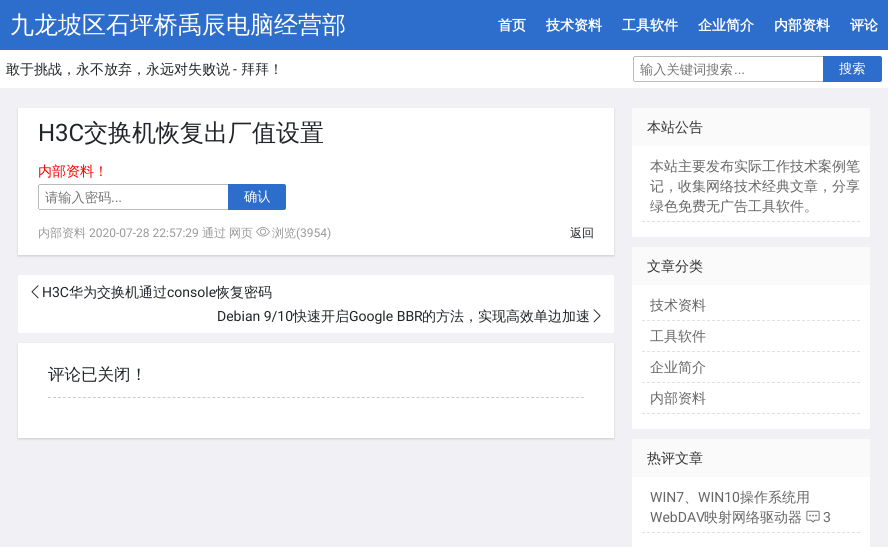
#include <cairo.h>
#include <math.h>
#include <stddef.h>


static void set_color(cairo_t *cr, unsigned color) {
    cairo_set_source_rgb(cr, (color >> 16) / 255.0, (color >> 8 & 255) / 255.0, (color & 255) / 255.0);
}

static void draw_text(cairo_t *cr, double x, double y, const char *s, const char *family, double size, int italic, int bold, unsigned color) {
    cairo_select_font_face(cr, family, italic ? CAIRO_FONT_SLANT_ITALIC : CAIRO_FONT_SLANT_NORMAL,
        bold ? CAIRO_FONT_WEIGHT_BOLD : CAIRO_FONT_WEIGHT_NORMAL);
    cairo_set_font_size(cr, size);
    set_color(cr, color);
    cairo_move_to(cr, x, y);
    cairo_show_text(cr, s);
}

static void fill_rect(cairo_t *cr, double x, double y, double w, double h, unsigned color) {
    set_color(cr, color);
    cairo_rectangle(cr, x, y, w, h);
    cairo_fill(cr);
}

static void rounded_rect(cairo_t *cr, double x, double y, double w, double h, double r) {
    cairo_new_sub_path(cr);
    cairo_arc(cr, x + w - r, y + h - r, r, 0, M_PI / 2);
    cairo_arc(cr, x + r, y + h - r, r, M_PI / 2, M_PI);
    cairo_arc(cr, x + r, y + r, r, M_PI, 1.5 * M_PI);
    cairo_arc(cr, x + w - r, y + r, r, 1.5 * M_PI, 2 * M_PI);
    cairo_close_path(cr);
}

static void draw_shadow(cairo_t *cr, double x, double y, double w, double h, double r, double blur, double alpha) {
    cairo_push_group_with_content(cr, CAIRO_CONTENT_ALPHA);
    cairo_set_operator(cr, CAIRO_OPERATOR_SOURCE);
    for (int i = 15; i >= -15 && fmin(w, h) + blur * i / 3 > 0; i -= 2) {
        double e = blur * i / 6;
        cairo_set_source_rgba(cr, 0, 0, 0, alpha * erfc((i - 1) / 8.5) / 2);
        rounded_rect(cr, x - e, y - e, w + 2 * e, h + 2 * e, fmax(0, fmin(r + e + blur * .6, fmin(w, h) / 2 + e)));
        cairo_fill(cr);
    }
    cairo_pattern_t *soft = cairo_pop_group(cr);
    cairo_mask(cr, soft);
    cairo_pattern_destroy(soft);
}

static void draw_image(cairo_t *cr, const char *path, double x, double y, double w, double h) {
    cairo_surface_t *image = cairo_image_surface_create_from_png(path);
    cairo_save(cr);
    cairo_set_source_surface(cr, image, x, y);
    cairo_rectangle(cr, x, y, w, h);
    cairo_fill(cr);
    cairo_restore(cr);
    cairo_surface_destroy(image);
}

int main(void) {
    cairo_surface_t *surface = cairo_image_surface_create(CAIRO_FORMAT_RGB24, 888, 547);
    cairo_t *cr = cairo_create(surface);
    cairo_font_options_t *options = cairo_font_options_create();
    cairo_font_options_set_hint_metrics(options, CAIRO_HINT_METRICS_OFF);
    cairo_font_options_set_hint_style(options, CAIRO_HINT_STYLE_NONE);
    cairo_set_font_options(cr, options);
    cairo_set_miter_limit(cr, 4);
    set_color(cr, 0xF0F0F5);
    cairo_paint(cr);
    fill_rect(cr, 0, 0, 888, 50, 0x2D6DCC);
    draw_text(cr, 10, 33, "九龙坡区石坪桥禹辰电脑经营部", "WenQuanYi Zen Hei Medium", 24, 0, 0, 0xFFFFFF);
    draw_text(cr, 498, 30, "首页", "WenQuanYi Zen Hei", 14, 0, 1, 0xFFFFFF);
    draw_text(cr, 546, 30, "技术资料", "WenQuanYi Zen Hei", 14, 0, 1, 0xFFFFFF);
    draw_text(cr, 622, 30, "工具软件", "WenQuanYi Zen Hei", 14, 0, 1, 0xFFFFFF);
    draw_text(cr, 698, 30, "企业简介", "WenQuanYi Zen Hei", 14, 0, 1, 0xFFFFFF);
    draw_text(cr, 774, 30, "内部资料", "WenQuanYi Zen Hei", 14, 0, 1, 0xFFFFFF);
    draw_text(cr, 850, 30, "评论", "WenQuanYi Zen Hei", 14, 0, 1, 0xFFFFFF);
    fill_rect(cr, 0, 50, 888, 38, 0xFFFFFF);
    draw_text(cr, 6, 74, "敢于挑战，永不放弃，永远对失败说", "WenQuanYi Zen Hei Medium", 14, 0, 0, 0x212529);
    draw_text(cr, 233, 74, "-", "Roboto", 14, 0, 0, 0x212529);
    draw_text(cr, 241, 74, "拜拜！", "WenQuanYi Zen Hei Medium", 14, 0, 0, 0x212529);
    fill_rect(cr, 634, 56, 189, 1, 0xBBBBBB);
    fill_rect(cr, 634, 81, 189, 1, 0xBBBBBB);
    fill_rect(cr, 633, 57, 1, 24, 0xBBBBBB);
    draw_text(cr, 640, 74, "输入关键词搜索", "WenQuanYi Zen Hei Medium", 13.25, 0, 0, 0x757575);
    draw_text(cr, 734, 74, "...", "Liberation Sans", 13.25, 0, 0, 0x757575);
    set_color(cr, 0x2D6DCC);
    cairo_new_path(cr);
    cairo_move_to(cr, 823, 56);
    cairo_line_to(cr, 880, 56);
    cairo_curve_to(cr, 881, 56, 882, 57, 882, 58);
    cairo_line_to(cr, 882, 80);
    cairo_curve_to(cr, 882, 81, 881, 82, 880, 82);
    cairo_line_to(cr, 823, 82);
    cairo_close_path(cr);
    cairo_fill(cr);
    draw_text(cr, 839, 73, "搜索", "WenQuanYi Zen Hei Medium", 13.25, 0, 0, 0xFFFFFF);
    set_color(cr, 0xCCCCCC);
    draw_shadow(cr, 18, 109, 596, 147, 0, 1, 1);
    fill_rect(cr, 18, 108, 596, 147, 0xFFFFFF);
    draw_text(cr, 38, 141, "H3C", "Roboto", 24, 0, 0, 0x212529);
    draw_text(cr, 84, 141, "交换机恢复出厂值设置", "WenQuanYi Zen Hei Medium", 24, 0, 0, 0x212529);
    draw_text(cr, 38, 176, "内部资料！", "WenQuanYi Zen Hei Medium", 14, 0, 0, 0xFF0000);
    fill_rect(cr, 39, 184, 189, 1, 0xBBBBBB);
    fill_rect(cr, 39, 209, 189, 1, 0xBBBBBB);
    fill_rect(cr, 38, 185, 1, 24, 0xBBBBBB);
    draw_text(cr, 45, 202, "请输入密码", "WenQuanYi Zen Hei Medium", 13.25, 0, 0, 0x757575);
    draw_text(cr, 111, 202, "...", "Liberation Sans", 13.25, 0, 0, 0x757575);
    set_color(cr, 0x2D6DCC);
    cairo_new_path(cr);
    cairo_move_to(cr, 228, 184);
    cairo_line_to(cr, 284, 184);
    cairo_curve_to(cr, 285, 184, 286, 185, 286, 186);
    cairo_line_to(cr, 286, 208);
    cairo_curve_to(cr, 286, 209, 285, 210, 284, 210);
    cairo_line_to(cr, 228, 210);
    cairo_close_path(cr);
    cairo_fill(cr);
    draw_text(cr, 244, 201, "确认", "WenQuanYi Zen Hei Medium", 13.25, 0, 0, 0xFFFFFF);
    draw_text(cr, 38, 237, "内部资料", "WenQuanYi Zen Hei Medium", 12, 0, 0, 0x999999);
    draw_text(cr, 89, 237, "2020-07-28 22:57:29", "Roboto", 12, 0, 0, 0x999999);
    draw_text(cr, 202, 237, "通过", "WenQuanYi Zen Hei Medium", 12, 0, 0, 0x999999);
    draw_text(cr, 229, 237, "网页", "WenQuanYi Zen Hei Medium", 12, 0, 0, 0x999999);
    draw_image(cr, "assets/img1.png", 256, 227, 14, 10);
    draw_text(cr, 272, 237, "浏览", "WenQuanYi Zen Hei Medium", 12, 0, 0, 0x999999);
    draw_text(cr, 296, 237, "(3954)", "Roboto", 12, 0, 0, 0x999999);
    draw_text(cr, 570, 237, "返回", "WenQuanYi Zen Hei Medium", 12, 0, 0, 0x212529);
    fill_rect(cr, 18, 275, 596, 58, 0xFFFFFF);
    draw_image(cr, "assets/img2.png", 31, 285, 8, 14);
    draw_text(cr, 42, 297, "H3C", "Roboto", 14, 0, 0, 0x212529);
    draw_text(cr, 69, 297, "华为交换机通过", "WenQuanYi Zen Hei Medium", 14, 0, 0, 0x212529);
    draw_text(cr, 167, 297, "console", "Roboto", 14, 0, 0, 0x212529);
    draw_text(cr, 216, 297, "恢复密码", "WenQuanYi Zen Hei Medium", 14, 0, 0, 0x212529);
    draw_text(cr, 217, 321, "Debian 9/10", "Roboto", 14, 0, 0, 0x212529);
    draw_text(cr, 293, 321, "快速开启", "WenQuanYi Zen Hei Medium", 14, 0, 0, 0x212529);
    draw_text(cr, 349, 321, "Google BBR", "Roboto", 14, 0, 0, 0x212529);
    draw_text(cr, 422, 321, "的方法，实现高效单边加速", "WenQuanYi Zen Hei Medium", 14, 0, 0, 0x212529);
    draw_image(cr, "assets/img3.png", 593, 309, 8, 14);
    set_color(cr, 0xCCCCCC);
    draw_shadow(cr, 18, 344, 596, 95, 0, 1, 1);
    fill_rect(cr, 18, 343, 596, 95, 0xFFFFFF);
    cairo_new_path(cr);
    cairo_move_to(cr, 48, 397.5);
    cairo_line_to(cr, 584, 397.5);
    set_color(cr, 0xCCCCCC);
    cairo_set_line_width(cr, 1);
    cairo_set_dash(cr, (double[]){3, 1.98}, 2, 0);
    cairo_stroke(cr);
    draw_text(cr, 48, 380, "评论已关闭！", "WenQuanYi Zen Hei Medium", 16.5, 0, 0, 0x212529);
    fill_rect(cr, 632, 146, 238, 91, 0xFFFFFF);
    fill_rect(cr, 632, 108, 238, 38, 0xFAFAFA);
    draw_text(cr, 647, 132, "本站公告", "WenQuanYi Zen Hei Medium", 14, 0, 0, 0x333333);
    cairo_new_path(cr);
    cairo_move_to(cr, 642, 221.5);
    cairo_line_to(cr, 860, 221.5);
    set_color(cr, 0xE0E0E0);
    cairo_set_dash(cr, (double[]){3, 2}, 2, 0);
    cairo_stroke(cr);
    draw_text(cr, 650, 171, "本站主要发布实际工作技术案例笔", "WenQuanYi Zen Hei Medium", 14, 0, 0, 0x666666);
    draw_text(cr, 650, 191, "记，收集网络技术经典文章，分享", "WenQuanYi Zen Hei Medium", 14, 0, 0, 0x666666);
    draw_text(cr, 650, 211, "绿色免费无广告工具软件。", "WenQuanYi Zen Hei Medium", 14, 0, 0, 0x666666);
    fill_rect(cr, 632, 285, 238, 144, 0xFFFFFF);
    fill_rect(cr, 632, 247, 238, 38, 0xFAFAFA);
    draw_text(cr, 647, 271, "文章分类", "WenQuanYi Zen Hei Medium", 14, 0, 0, 0x333333);
    cairo_new_path(cr);
    cairo_move_to(cr, 642, 320.5);
    cairo_line_to(cr, 860, 320.5);
    set_color(cr, 0xE0E0E0);
    cairo_stroke(cr);
    draw_text(cr, 650, 310, "技术资料", "WenQuanYi Zen Hei Medium", 14, 0, 0, 0x666666);
    cairo_new_path(cr);
    cairo_move_to(cr, 642, 351.5);
    cairo_line_to(cr, 860, 351.5);
    set_color(cr, 0xE0E0E0);
    cairo_stroke(cr);
    draw_text(cr, 650, 341, "工具软件", "WenQuanYi Zen Hei Medium", 14, 0, 0, 0x666666);
    cairo_new_path(cr);
    cairo_move_to(cr, 642, 382.5);
    cairo_line_to(cr, 860, 382.5);
    set_color(cr, 0xE0E0E0);
    cairo_stroke(cr);
    draw_text(cr, 650, 372, "企业简介", "WenQuanYi Zen Hei Medium", 14, 0, 0, 0x666666);
    cairo_new_path(cr);
    cairo_move_to(cr, 642, 413.5);
    cairo_line_to(cr, 860, 413.5);
    set_color(cr, 0xE0E0E0);
    cairo_stroke(cr);
    draw_text(cr, 650, 403, "内部资料", "WenQuanYi Zen Hei Medium", 14, 0, 0, 0x666666);
    fill_rect(cr, 632, 477, 238, 70, 0xFFFFFF);
    fill_rect(cr, 632, 439, 238, 38, 0xFAFAFA);
    draw_text(cr, 647, 463, "热评文章", "WenQuanYi Zen Hei Medium", 14, 0, 0, 0x333333);
    cairo_new_path(cr);
    cairo_move_to(cr, 642, 532.5);
    cairo_line_to(cr, 860, 532.5);
    set_color(cr, 0xE0E0E0);
    cairo_stroke(cr);
    draw_text(cr, 650, 502, "WIN7", "Roboto", 14, 0, 0, 0x666666);
    draw_text(cr, 684, 502, "、", "WenQuanYi Zen Hei Medium", 14, 0, 0, 0x666666);
    draw_text(cr, 698, 502, "WIN10", "Roboto", 14, 0, 0, 0x666666);
    draw_text(cr, 740, 502, "操作系统用", "WenQuanYi Zen Hei Medium", 14, 0, 0, 0x666666);
    draw_text(cr, 650, 522, "WebDAV", "Roboto", 14, 0, 0, 0x666666);
    draw_text(cr, 704, 522, "映射网络驱动器", "WenQuanYi Zen Hei Medium", 14, 0, 0, 0x666666);
    draw_image(cr, "assets/img4.png", 806, 510, 14, 13);
    draw_text(cr, 823, 522, "3", "Roboto", 14, 0, 0, 0x666666);
    cairo_surface_write_to_png(surface, "output.png");
    cairo_font_options_destroy(options);
    cairo_destroy(cr);
    cairo_surface_destroy(surface);
    return 0;
}
